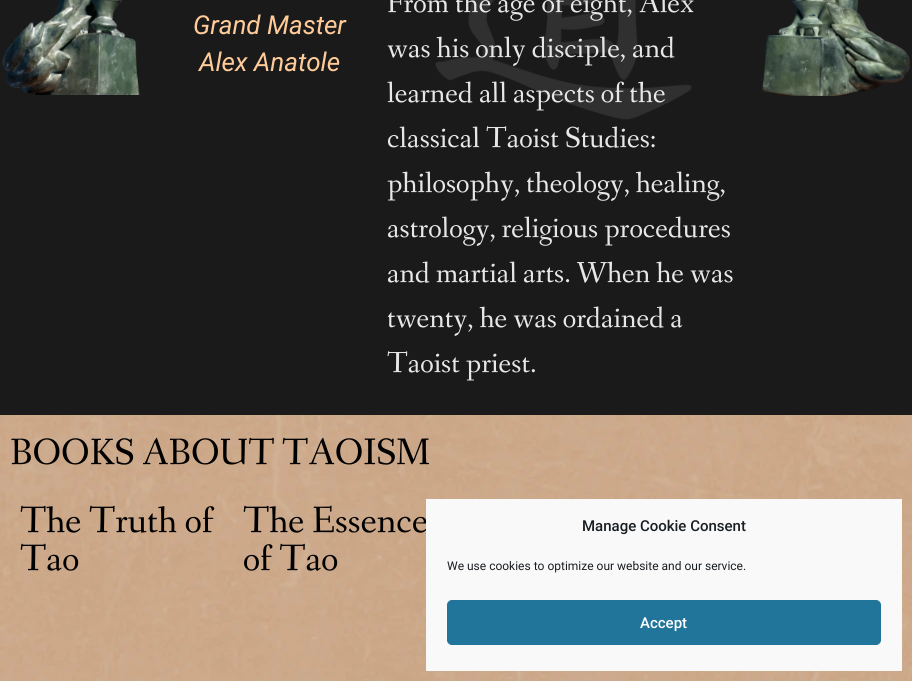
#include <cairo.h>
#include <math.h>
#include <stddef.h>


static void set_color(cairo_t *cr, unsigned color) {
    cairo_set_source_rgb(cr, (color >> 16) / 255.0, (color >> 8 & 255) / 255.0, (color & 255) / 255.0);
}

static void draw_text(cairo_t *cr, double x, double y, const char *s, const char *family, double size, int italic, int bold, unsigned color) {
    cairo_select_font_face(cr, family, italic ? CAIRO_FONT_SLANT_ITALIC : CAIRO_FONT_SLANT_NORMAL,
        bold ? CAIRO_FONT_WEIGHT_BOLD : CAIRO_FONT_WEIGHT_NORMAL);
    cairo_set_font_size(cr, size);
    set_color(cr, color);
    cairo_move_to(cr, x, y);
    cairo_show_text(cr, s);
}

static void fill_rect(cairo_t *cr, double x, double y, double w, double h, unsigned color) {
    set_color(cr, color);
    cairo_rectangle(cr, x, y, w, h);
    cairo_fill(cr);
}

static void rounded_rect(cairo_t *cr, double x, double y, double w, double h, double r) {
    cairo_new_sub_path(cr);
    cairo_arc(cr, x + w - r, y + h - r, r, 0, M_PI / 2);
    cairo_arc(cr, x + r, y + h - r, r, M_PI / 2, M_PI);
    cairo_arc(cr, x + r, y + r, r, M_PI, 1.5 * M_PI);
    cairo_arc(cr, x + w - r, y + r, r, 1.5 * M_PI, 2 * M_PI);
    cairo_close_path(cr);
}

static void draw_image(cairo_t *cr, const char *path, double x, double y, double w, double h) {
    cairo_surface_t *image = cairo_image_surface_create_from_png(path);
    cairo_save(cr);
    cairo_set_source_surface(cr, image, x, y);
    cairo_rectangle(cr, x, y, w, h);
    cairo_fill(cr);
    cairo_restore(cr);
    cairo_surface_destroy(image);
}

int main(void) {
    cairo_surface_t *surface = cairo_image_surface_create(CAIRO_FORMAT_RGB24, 912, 681);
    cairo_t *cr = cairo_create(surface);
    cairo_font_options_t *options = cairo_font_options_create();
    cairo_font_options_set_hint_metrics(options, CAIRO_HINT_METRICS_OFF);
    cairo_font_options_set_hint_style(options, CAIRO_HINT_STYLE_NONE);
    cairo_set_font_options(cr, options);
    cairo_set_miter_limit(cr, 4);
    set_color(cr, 0xFFFFFF);
    cairo_paint(cr);
    draw_image(cr, "assets/img1.png", 0, 415, 912, 266);
    fill_rect(cr, 0, 0, 912, 415, 0x1A1A1A);
    draw_image(cr, "assets/img2.png", 2, 0, 138, 95);
    draw_text(cr, 193, 34, "Grand Master", "Roboto", 26, 1, 0, 0xFFCC99);
    draw_text(cr, 199, 71, "Alex Anatole", "Roboto", 26, 1, 0, 0xFFCC99);
    draw_image(cr, "assets/img3.png", 435, 0, 257, 120);
    draw_text(cr, 387, 12, "From the age of eight, Alex", "Fanwood Text", 30, 0, 0, 0xE7E7E7);
    draw_text(cr, 387, 57, "was his only disciple, and", "Fanwood Text", 30, 0, 0, 0xE7E7E7);
    draw_text(cr, 387, 102, "learned all aspects of the", "Fanwood Text", 30, 0, 0, 0xE7E7E7);
    draw_text(cr, 387, 147, "classical Taoist Studies:", "Fanwood Text", 30, 0, 0, 0xE7E7E7);
    draw_text(cr, 387, 192, "philosophy, theology, healing,", "Fanwood Text", 30, 0, 0, 0xE7E7E7);
    draw_text(cr, 387, 237, "astrology, religious procedures", "Fanwood Text", 30, 0, 0, 0xE7E7E7);
    draw_text(cr, 387, 282, "and martial arts. When he was", "Fanwood Text", 30, 0, 0, 0xE7E7E7);
    draw_text(cr, 387, 327, "twenty, he was ordained a", "Fanwood Text", 30, 0, 0, 0xE7E7E7);
    draw_text(cr, 387, 372, "Taoist priest.", "Fanwood Text", 30, 0, 0, 0xE7E7E7);
    draw_image(cr, "assets/img4.png", 762, 0, 148, 96);
    draw_text(cr, 10, 464, "BOOKS ABOUT TAOISM", "Fanwood Text", 38, 0, 0, 0x000000);
    draw_text(cr, 20, 532, "The Truth of", "Fanwood Text", 38, 0, 0, 0x000000);
    draw_text(cr, 20, 570, "Tao", "Fanwood Text", 38, 0, 0, 0x000000);
    draw_text(cr, 243, 532, "The Essence", "Fanwood Text", 38, 0, 0, 0x000000);
    draw_text(cr, 243, 570, "of Tao", "Fanwood Text", 38, 0, 0, 0x000000);
    fill_rect(cr, 426, 499, 476, 172, 0xF9F9F9);
    draw_text(cr, 582, 531, "Manage Cookie Consent", "Roboto Medium", 15, 0, 0, 0x191E23);
    draw_text(cr, 447, 570, "We use cookies to optimize our website and our service.", "Roboto", 12, 0, 0, 0x191E23);
    set_color(cr, 0x21759B);
    rounded_rect(cr, 447.5, 600.5, 433, 44, 4.5);
    cairo_fill_preserve(cr);
    cairo_set_line_width(cr, 1);
    cairo_stroke(cr);
    draw_text(cr, 640, 628, "Accept", "Roboto Medium", 15, 0, 0, 0xFFFFFF);
    cairo_surface_write_to_png(surface, "output.png");
    cairo_font_options_destroy(options);
    cairo_destroy(cr);
    cairo_surface_destroy(surface);
    return 0;
}
